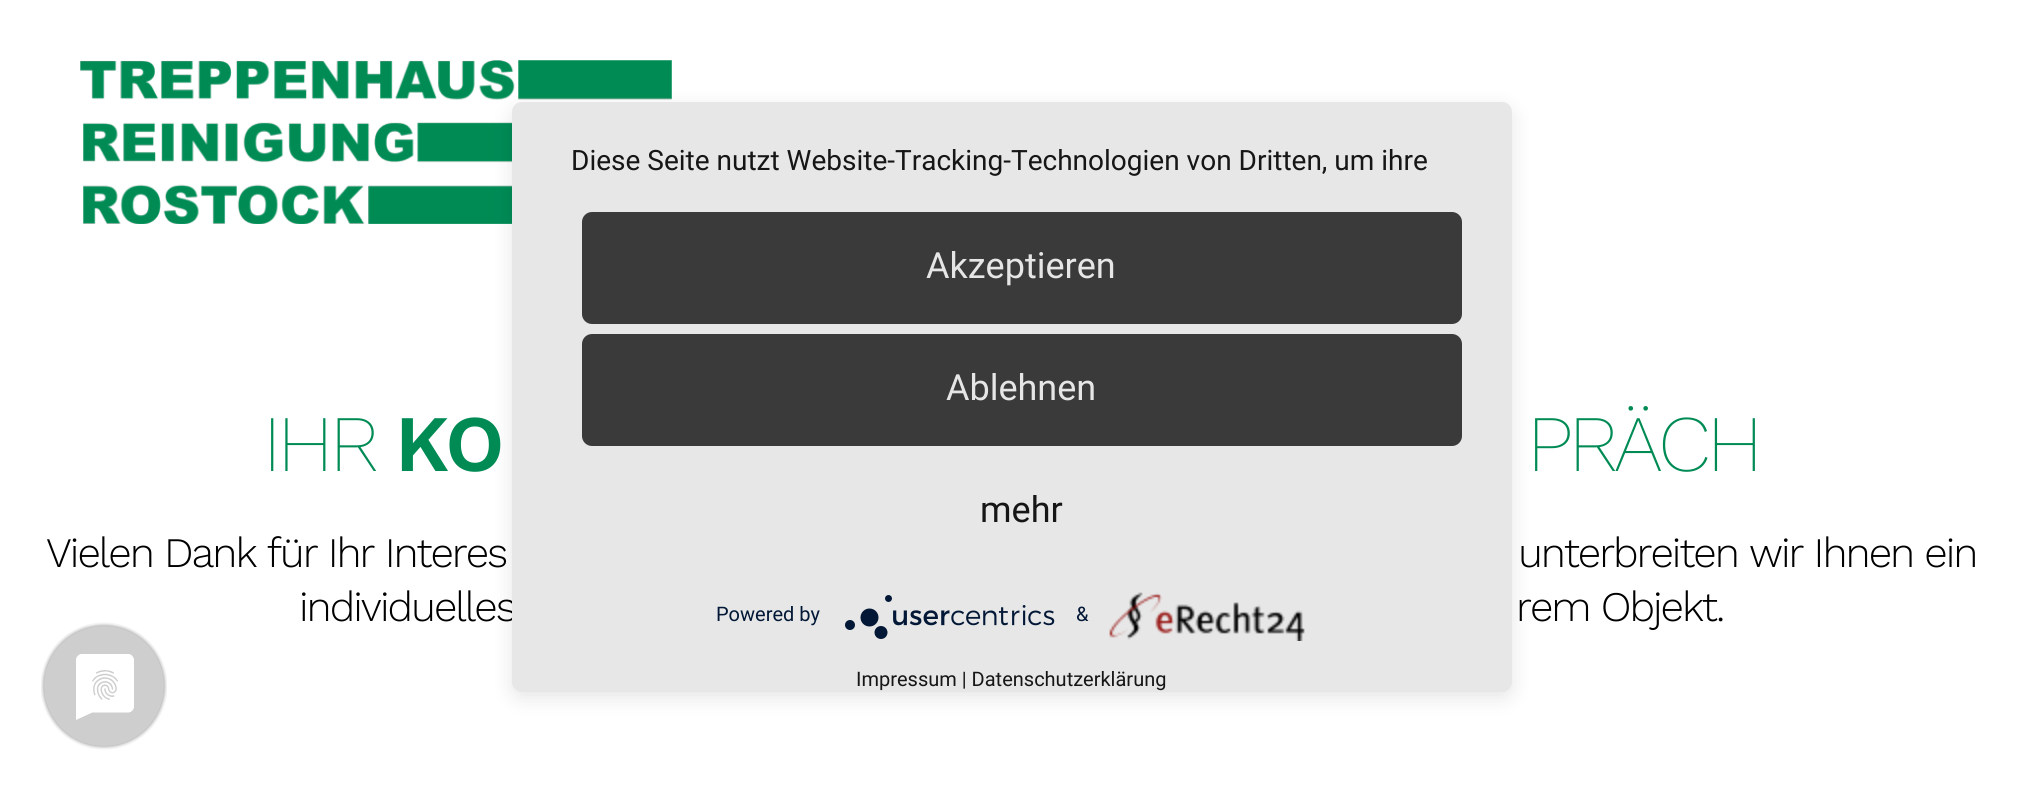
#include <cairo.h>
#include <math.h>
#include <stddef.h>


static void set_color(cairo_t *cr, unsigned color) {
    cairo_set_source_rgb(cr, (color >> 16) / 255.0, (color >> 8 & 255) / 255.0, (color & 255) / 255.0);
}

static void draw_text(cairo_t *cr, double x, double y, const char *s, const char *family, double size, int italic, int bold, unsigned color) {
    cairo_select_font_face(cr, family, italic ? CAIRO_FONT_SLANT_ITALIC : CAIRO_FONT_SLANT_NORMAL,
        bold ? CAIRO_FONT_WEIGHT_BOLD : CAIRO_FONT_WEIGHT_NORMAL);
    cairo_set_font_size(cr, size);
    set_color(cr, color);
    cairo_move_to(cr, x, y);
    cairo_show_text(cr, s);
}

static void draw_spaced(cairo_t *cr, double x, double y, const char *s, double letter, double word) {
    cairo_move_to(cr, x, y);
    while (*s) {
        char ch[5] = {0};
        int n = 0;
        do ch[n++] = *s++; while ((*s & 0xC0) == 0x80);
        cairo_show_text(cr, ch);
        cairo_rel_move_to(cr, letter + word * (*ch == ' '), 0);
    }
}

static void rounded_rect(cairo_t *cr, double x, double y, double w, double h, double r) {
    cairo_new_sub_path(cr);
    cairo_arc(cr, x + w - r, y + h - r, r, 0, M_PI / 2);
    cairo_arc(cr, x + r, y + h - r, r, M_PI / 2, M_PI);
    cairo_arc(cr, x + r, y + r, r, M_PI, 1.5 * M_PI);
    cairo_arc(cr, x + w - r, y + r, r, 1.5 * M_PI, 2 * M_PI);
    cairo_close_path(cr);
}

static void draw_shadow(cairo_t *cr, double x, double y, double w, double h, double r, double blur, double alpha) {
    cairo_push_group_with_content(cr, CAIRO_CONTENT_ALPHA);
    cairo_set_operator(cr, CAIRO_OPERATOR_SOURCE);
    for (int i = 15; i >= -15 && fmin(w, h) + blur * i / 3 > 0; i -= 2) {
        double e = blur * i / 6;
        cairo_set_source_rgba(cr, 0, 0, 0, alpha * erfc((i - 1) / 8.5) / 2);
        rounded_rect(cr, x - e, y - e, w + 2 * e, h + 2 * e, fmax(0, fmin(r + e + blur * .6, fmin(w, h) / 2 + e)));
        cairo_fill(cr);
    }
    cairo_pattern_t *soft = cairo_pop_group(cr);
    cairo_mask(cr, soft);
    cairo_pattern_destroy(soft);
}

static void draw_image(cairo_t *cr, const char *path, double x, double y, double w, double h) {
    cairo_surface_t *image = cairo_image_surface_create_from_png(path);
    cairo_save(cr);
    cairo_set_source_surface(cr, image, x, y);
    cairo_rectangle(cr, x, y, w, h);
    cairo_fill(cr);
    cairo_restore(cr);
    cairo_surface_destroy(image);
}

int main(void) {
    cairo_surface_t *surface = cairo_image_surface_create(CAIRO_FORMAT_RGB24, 2021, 790);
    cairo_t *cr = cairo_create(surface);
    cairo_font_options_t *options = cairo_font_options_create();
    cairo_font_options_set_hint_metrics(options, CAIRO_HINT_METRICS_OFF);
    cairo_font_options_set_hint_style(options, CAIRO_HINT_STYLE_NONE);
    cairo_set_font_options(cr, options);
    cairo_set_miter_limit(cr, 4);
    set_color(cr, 0xFFFFFF);
    cairo_paint(cr);
    draw_image(cr, "assets/img1.png", 80, 60, 592, 164);
    draw_image(cr, "assets/img2.png", 41, 622, 126, 128);
    set_color(cr, 0x000000);
    draw_shadow(cr, 512, 108, 1000, 590, 10, 10, 0.1);
    cairo_select_font_face(cr, "Work Sans Light", CAIRO_FONT_SLANT_NORMAL, CAIRO_FONT_WEIGHT_NORMAL);
    cairo_set_font_size(cr, 42);
    set_color(cr, 0x000000);
    draw_spaced(cr, 299, 621, "individuelles", -2, 0);
    set_color(cr, 0xE7E7E7);
    rounded_rect(cr, 512, 102, 1000, 590, 10);
    cairo_fill(cr);
    draw_text(cr, 571, 170, "Diese Seite nutzt Website-Tracking-Technologien von Dritten, um ihre", "Roboto", 28, 0, 0, 0x161616);
    set_color(cr, 0x3A3A3A);
    rounded_rect(cr, 582, 212, 880, 112, 10);
    cairo_fill(cr);
    draw_text(cr, 926, 278, "Akzeptieren", "Roboto", 36, 0, 0, 0xE6E6E6);
    set_color(cr, 0x3A3A3A);
    rounded_rect(cr, 582, 334, 880, 112, 10);
    cairo_fill(cr);
    draw_text(cr, 946, 400, "Ablehnen", "Roboto", 36, 0, 0, 0xE6E6E6);
    draw_text(cr, 980, 522, "mehr", "Roboto", 36, 0, 0, 0x161616);
    draw_text(cr, 716, 621, "Powered by", "Roboto", 20, 0, 0, 0x021836);
    draw_image(cr, "assets/img3.png", 845, 595, 210, 44);
    draw_text(cr, 1076, 621, "&", "Roboto", 20, 0, 0, 0x021836);
    draw_image(cr, "assets/img4.png", 1109, 592, 196, 49);
    draw_text(cr, 856, 686, "Impressum | Datenschutzerklärung", "Roboto", 20, 0, 0, 0x161616);
    cairo_select_font_face(cr, "Work Sans ExtraLight", CAIRO_FONT_SLANT_NORMAL, CAIRO_FONT_WEIGHT_NORMAL);
    cairo_set_font_size(cr, 80);
    set_color(cr, 0x008B55);
    draw_spaced(cr, 263, 471, "IHR", -4, 0);
    cairo_select_font_face(cr, "Work Sans SemiBold", CAIRO_FONT_SLANT_NORMAL, CAIRO_FONT_WEIGHT_NORMAL);
    draw_spaced(cr, 395, 471, "KO", -4, 0);
    cairo_select_font_face(cr, "Work Sans ExtraLight", CAIRO_FONT_SLANT_NORMAL, CAIRO_FONT_WEIGHT_NORMAL);
    draw_spaced(cr, 1527, 471, "PRÄCH", -4, 0);
    cairo_select_font_face(cr, "Work Sans Light", CAIRO_FONT_SLANT_NORMAL, CAIRO_FONT_WEIGHT_NORMAL);
    cairo_set_font_size(cr, 42);
    set_color(cr, 0x000000);
    draw_spaced(cr, 46, 567, "Vielen Dank für Ihr Interes", -2, 0);
    draw_spaced(cr, 1518, 567, "unterbreiten wir Ihnen ein", -2, 0);
    draw_spaced(cr, 1516, 621, "rem Objekt.", -2, 0);
    cairo_surface_write_to_png(surface, "output.png");
    cairo_font_options_destroy(options);
    cairo_destroy(cr);
    cairo_surface_destroy(surface);
    return 0;
}
